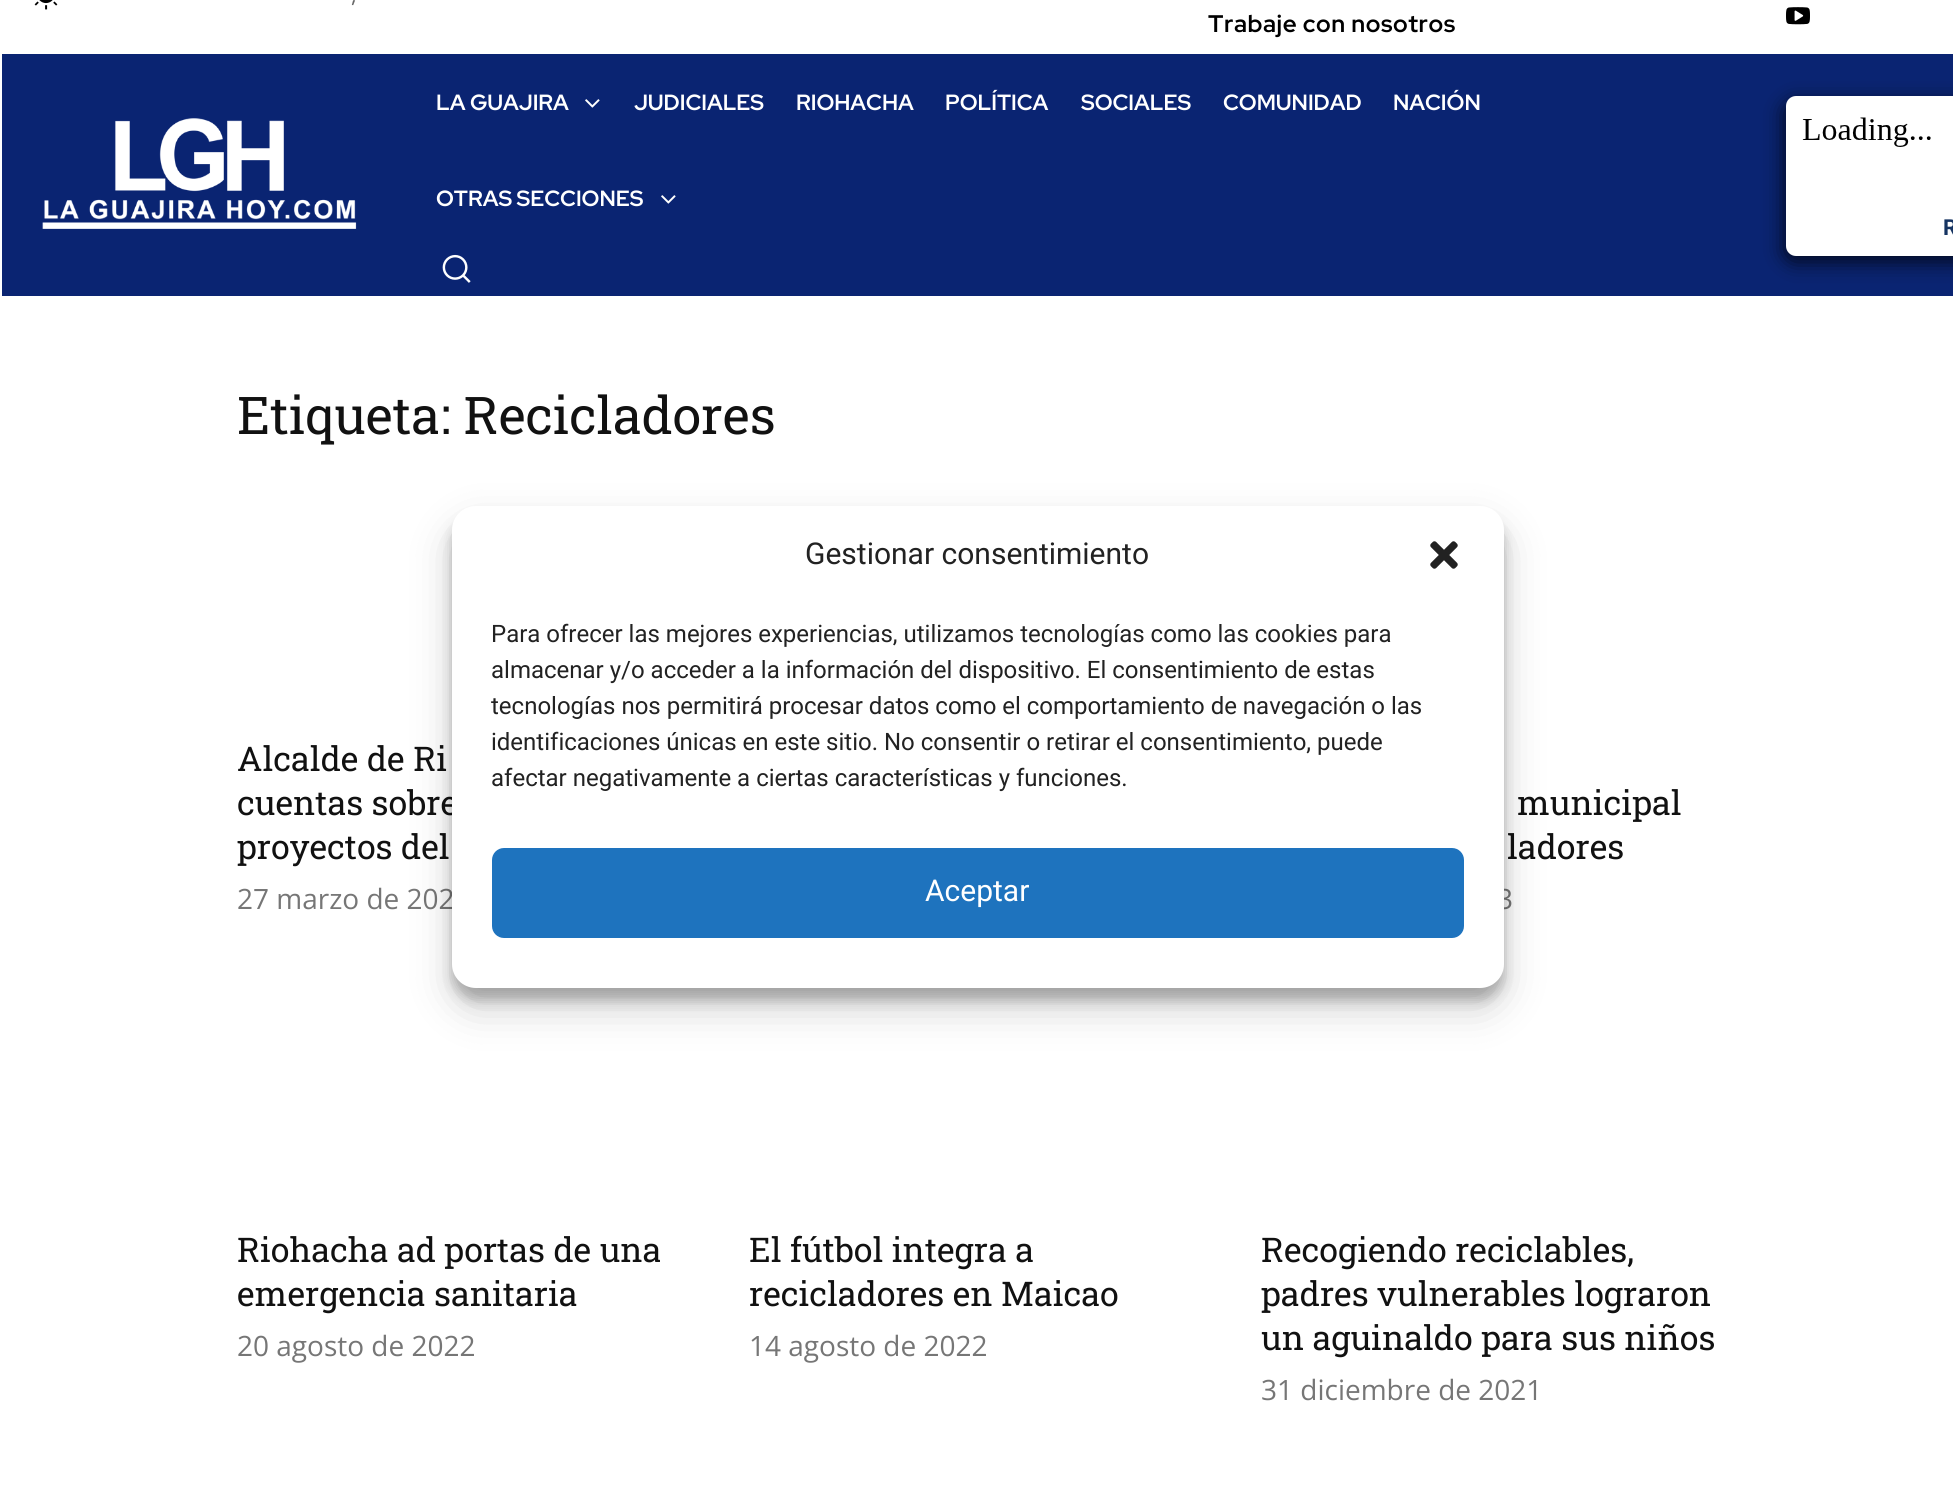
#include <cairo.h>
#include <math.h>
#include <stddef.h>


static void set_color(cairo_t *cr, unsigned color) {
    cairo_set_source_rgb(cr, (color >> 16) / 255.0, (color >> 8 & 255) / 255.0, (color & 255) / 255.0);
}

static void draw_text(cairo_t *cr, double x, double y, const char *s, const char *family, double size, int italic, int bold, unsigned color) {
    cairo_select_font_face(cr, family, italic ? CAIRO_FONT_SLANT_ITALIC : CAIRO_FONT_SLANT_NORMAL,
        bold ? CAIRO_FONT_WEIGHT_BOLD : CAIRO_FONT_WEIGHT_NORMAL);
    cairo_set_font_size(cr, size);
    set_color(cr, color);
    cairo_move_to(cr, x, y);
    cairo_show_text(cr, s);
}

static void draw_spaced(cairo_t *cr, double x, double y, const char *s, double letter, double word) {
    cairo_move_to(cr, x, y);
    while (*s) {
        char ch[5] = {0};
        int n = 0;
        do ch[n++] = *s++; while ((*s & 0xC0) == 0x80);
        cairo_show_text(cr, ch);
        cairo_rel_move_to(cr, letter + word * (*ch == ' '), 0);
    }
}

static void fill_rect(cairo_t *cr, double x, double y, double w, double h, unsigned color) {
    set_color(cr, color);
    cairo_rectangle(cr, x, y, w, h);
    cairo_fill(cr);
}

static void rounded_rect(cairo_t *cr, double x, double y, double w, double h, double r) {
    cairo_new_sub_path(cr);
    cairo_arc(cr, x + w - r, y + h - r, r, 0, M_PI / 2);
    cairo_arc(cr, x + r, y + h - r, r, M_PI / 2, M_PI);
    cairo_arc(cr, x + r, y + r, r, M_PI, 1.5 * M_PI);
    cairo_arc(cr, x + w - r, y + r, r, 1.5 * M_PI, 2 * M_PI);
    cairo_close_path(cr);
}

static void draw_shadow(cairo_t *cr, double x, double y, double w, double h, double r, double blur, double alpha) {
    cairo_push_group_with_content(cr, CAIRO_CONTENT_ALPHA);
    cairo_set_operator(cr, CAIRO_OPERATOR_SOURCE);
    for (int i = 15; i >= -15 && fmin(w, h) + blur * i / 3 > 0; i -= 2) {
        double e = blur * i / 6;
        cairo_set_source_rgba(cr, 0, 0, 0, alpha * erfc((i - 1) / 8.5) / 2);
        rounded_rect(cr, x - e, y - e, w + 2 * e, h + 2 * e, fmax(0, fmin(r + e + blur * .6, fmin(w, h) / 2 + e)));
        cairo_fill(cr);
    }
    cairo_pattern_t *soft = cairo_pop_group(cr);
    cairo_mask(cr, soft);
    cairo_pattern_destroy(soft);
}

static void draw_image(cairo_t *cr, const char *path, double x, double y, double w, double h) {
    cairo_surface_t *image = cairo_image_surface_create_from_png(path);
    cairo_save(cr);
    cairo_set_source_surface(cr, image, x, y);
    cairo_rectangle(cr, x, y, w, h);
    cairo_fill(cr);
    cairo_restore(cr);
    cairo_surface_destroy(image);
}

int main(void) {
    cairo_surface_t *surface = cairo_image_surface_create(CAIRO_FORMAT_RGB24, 1953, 1490);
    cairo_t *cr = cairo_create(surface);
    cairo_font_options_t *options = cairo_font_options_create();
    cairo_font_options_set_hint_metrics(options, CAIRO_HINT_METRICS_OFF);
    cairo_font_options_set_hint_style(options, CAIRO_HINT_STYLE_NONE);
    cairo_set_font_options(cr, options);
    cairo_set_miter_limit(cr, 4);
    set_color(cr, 0xFFFFFF);
    cairo_paint(cr);
    draw_image(cr, "assets/img1.png", 34, 0, 24, 10);
    cairo_select_font_face(cr, "Red Hat Display Medium", CAIRO_FONT_SLANT_NORMAL, CAIRO_FONT_WEIGHT_NORMAL);
    cairo_set_font_size(cr, 22);
    set_color(cr, 0x666666);
    draw_spaced(cr, 351, 2, ",", 1, 0);
    cairo_select_font_face(cr, "Red Hat Display", CAIRO_FONT_SLANT_NORMAL, CAIRO_FONT_WEIGHT_BOLD);
    cairo_set_font_size(cr, 24);
    set_color(cr, 0x000000);
    draw_spaced(cr, 1208, 32, "Trabaje con nosotros", 0.6, 0);
    draw_image(cr, "assets/img2.png", 1786, 7, 24, 18);
    fill_rect(cr, 2, 54, 1951, 242, 0x0A2472);
    draw_image(cr, "assets/img3.png", 42, 118, 315, 111);
    draw_text(cr, 436, 110, "LA GUAJIRA", "Red Hat Display", 22, 0, 1, 0xFFFFFF);
    draw_image(cr, "assets/img4.png", 585, 99, 15, 9);
    draw_text(cr, 634, 110, "JUDICIALES", "Red Hat Display", 22, 0, 1, 0xFFFFFF);
    draw_text(cr, 796, 110, "RIOHACHA", "Red Hat Display", 22, 0, 1, 0xFFFFFF);
    draw_text(cr, 945, 110, "POLÍTICA", "Red Hat Display", 22, 0, 1, 0xFFFFFF);
    draw_text(cr, 1081, 110, "SOCIALES", "Red Hat Display", 22, 0, 1, 0xFFFFFF);
    draw_text(cr, 1223, 110, "COMUNIDAD", "Red Hat Display", 22, 0, 1, 0xFFFFFF);
    draw_text(cr, 1393, 110, "NACIÓN", "Red Hat Display", 22, 0, 1, 0xFFFFFF);
    draw_text(cr, 436, 206, "OTRAS SECCIONES", "Red Hat Display", 22, 0, 1, 0xFFFFFF);
    draw_image(cr, "assets/img4.png", 661, 195, 15, 9);
    draw_image(cr, "assets/img5.png", 442, 254, 29, 29);
    set_color(cr, 0x000000);
    draw_shadow(cr, 1784, 102, 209, 160, 10, 10, 0.75);
    set_color(cr, 0xFFFFFF);
    cairo_new_path(cr);
    cairo_move_to(cr, 1796, 96);
    cairo_line_to(cr, 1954, 96);
    cairo_line_to(cr, 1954, 256);
    cairo_line_to(cr, 1796, 256);
    cairo_curve_to(cr, 1790.5, 256, 1786, 251.5, 1786, 246);
    cairo_line_to(cr, 1786, 106);
    cairo_curve_to(cr, 1786, 100.5, 1790.5, 96, 1796, 96);
    cairo_close_path(cr);
    cairo_fill(cr);
    draw_image(cr, "assets/img6.png", 1802, 117, 129, 30);
    draw_text(cr, 1943, 235, "R", "Roboto", 22, 0, 1, 0x163462);
    draw_text(cr, 237, 434, "Etiqueta: Recicladores", "Roboto Slab", 52, 0, 0, 0x111111);
    draw_text(cr, 237, 771, "Alcalde de Ri", "Roboto Slab", 34, 0, 0, 0x111111);
    draw_text(cr, 237, 815, "cuentas sobre", "Roboto Slab", 34, 0, 0, 0x111111);
    draw_text(cr, 237, 859, "proyectos del", "Roboto Slab", 34, 0, 0, 0x111111);
    draw_text(cr, 237, 909, "27 marzo de 202", "Open Sans", 28, 0, 0, 0x767676);
    draw_text(cr, 1517, 815, "municipal", "Roboto Slab", 34, 0, 0, 0x111111);
    draw_text(cr, 1507, 859, "ladores", "Roboto Slab", 34, 0, 0, 0x111111);
    draw_text(cr, 1497, 909, "3", "Open Sans", 28, 0, 0, 0x767676);
    draw_text(cr, 237, 1262, "Riohacha ad portas de una", "Roboto Slab", 34, 0, 0, 0x111111);
    draw_text(cr, 237, 1306, "emergencia sanitaria", "Roboto Slab", 34, 0, 0, 0x111111);
    draw_text(cr, 237, 1356, "20 agosto de 2022", "Open Sans", 28, 0, 0, 0x767676);
    draw_text(cr, 749, 1262, "El fútbol integra a", "Roboto Slab", 34, 0, 0, 0x111111);
    draw_text(cr, 749, 1306, "recicladores en Maicao", "Roboto Slab", 34, 0, 0, 0x111111);
    draw_text(cr, 749, 1356, "14 agosto de 2022", "Open Sans", 28, 0, 0, 0x767676);
    draw_text(cr, 1261, 1262, "Recogiendo reciclables,", "Roboto Slab", 34, 0, 0, 0x111111);
    draw_text(cr, 1261, 1306, "padres vulnerables lograron", "Roboto Slab", 34, 0, 0, 0x111111);
    draw_text(cr, 1261, 1350, "un aguinaldo para sus niños", "Roboto Slab", 34, 0, 0, 0x111111);
    draw_text(cr, 1261, 1400, "31 diciembre de 2021", "Open Sans", 28, 0, 0, 0x767676);
    set_color(cr, 0x000000);
    draw_shadow(cr, 452, 518, 1052, 482, 24, 6, 0.23);
    draw_shadow(cr, 452, 526, 1052, 482, 24, 20, 0.19);
    set_color(cr, 0xFFFFFF);
    rounded_rect(cr, 452, 506, 1052, 482, 24);
    cairo_fill(cr);
    draw_text(cr, 805, 564, "Gestionar consentimiento", "Roboto", 30, 0, 0, 0x222222);
    draw_image(cr, "assets/img7.png", 1430, 541, 28, 28);
    draw_text(cr, 491, 642, "Para ofrecer las mejores experiencias, utilizamos tecnologías como las cookies para", "Roboto", 24, 0, 0, 0x222222);
    draw_text(cr, 491, 678, "almacenar y/o acceder a la información del dispositivo. El consentimiento de estas", "Roboto", 24, 0, 0, 0x222222);
    draw_text(cr, 491, 714, "tecnologías nos permitirá procesar datos como el comportamiento de navegación o las", "Roboto", 24, 0, 0, 0x222222);
    draw_text(cr, 491, 750, "identificaciones únicas en este sitio. No consentir o retirar el consentimiento, puede", "Roboto", 24, 0, 0, 0x222222);
    draw_text(cr, 491, 786, "afectar negativamente a ciertas características y funciones.", "Roboto", 24, 0, 0, 0x222222);
    set_color(cr, 0x1E73BE);
    rounded_rect(cr, 493, 849, 970, 88, 11);
    cairo_fill_preserve(cr);
    cairo_stroke(cr);
    draw_text(cr, 925, 901, "Aceptar", "Roboto", 30, 0, 0, 0xFFFFFF);
    cairo_surface_write_to_png(surface, "output.png");
    cairo_font_options_destroy(options);
    cairo_destroy(cr);
    cairo_surface_destroy(surface);
    return 0;
}
